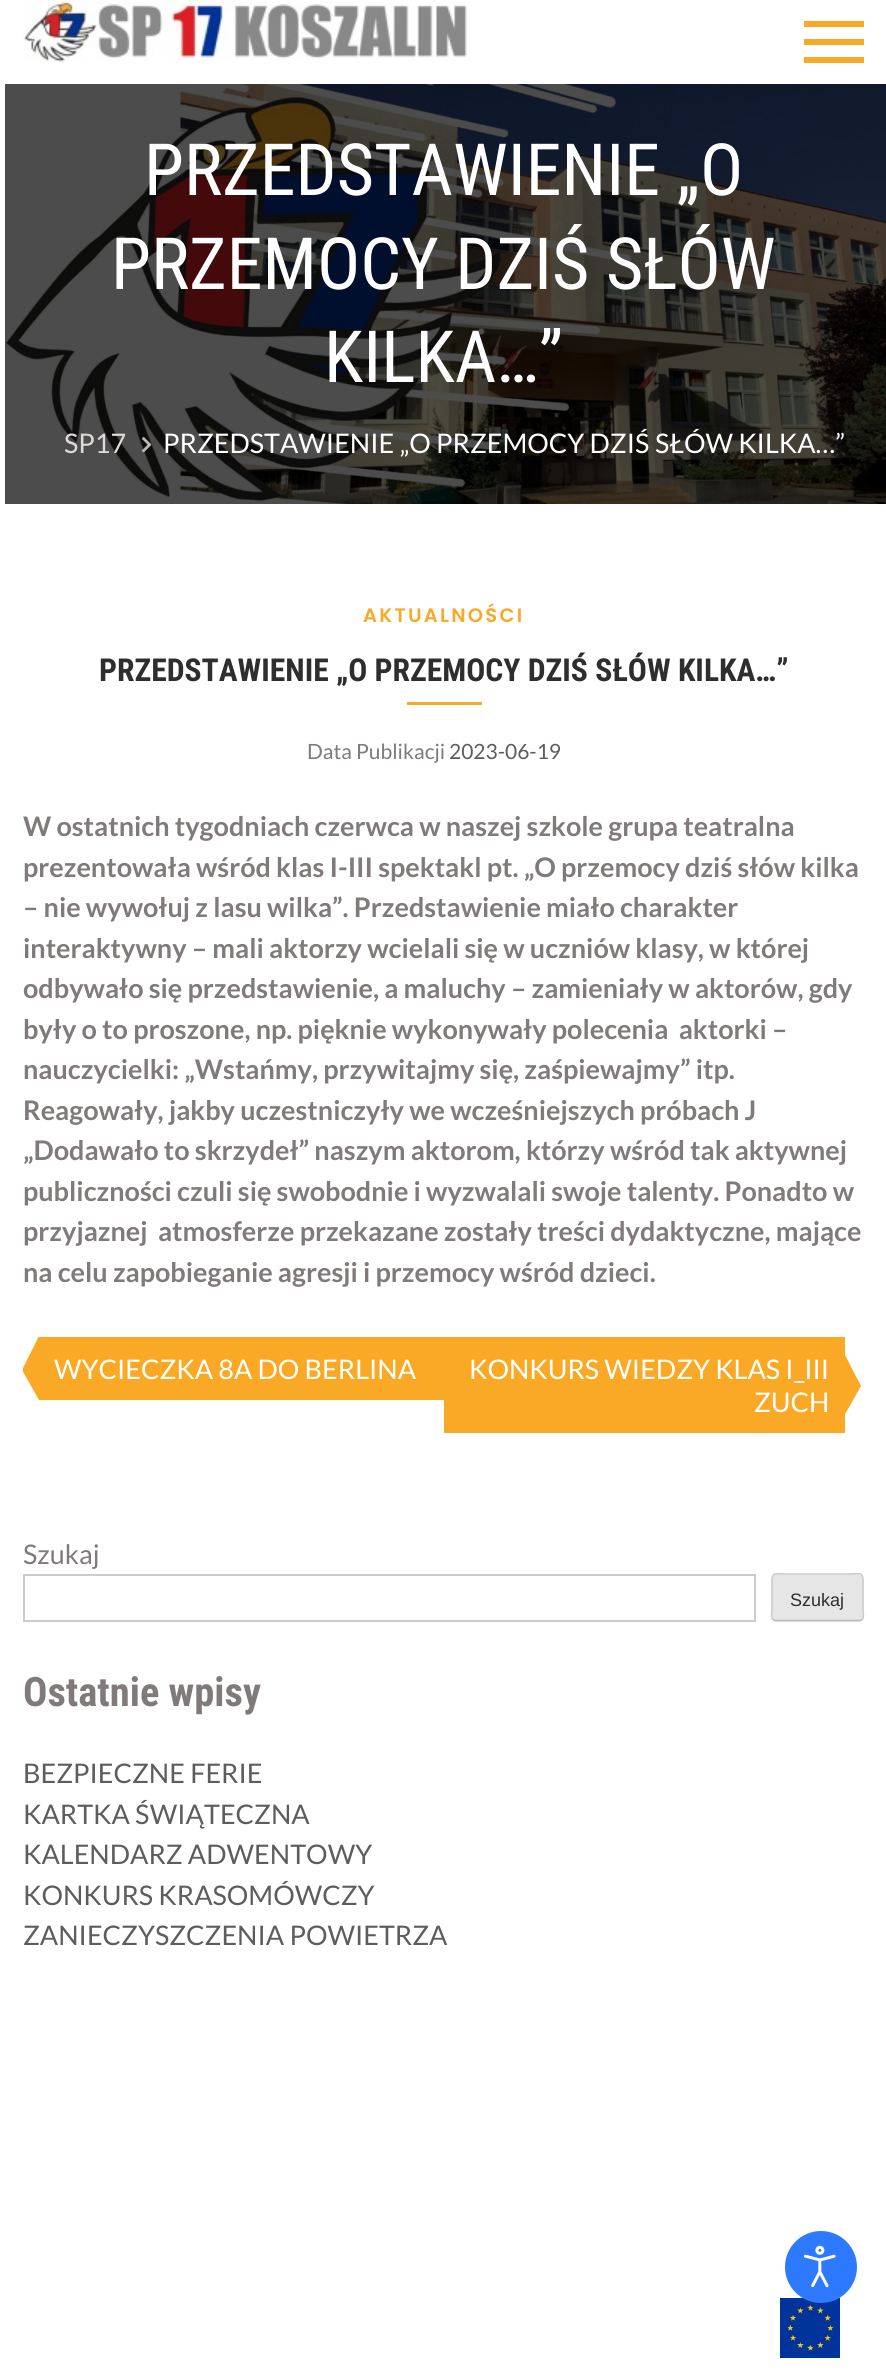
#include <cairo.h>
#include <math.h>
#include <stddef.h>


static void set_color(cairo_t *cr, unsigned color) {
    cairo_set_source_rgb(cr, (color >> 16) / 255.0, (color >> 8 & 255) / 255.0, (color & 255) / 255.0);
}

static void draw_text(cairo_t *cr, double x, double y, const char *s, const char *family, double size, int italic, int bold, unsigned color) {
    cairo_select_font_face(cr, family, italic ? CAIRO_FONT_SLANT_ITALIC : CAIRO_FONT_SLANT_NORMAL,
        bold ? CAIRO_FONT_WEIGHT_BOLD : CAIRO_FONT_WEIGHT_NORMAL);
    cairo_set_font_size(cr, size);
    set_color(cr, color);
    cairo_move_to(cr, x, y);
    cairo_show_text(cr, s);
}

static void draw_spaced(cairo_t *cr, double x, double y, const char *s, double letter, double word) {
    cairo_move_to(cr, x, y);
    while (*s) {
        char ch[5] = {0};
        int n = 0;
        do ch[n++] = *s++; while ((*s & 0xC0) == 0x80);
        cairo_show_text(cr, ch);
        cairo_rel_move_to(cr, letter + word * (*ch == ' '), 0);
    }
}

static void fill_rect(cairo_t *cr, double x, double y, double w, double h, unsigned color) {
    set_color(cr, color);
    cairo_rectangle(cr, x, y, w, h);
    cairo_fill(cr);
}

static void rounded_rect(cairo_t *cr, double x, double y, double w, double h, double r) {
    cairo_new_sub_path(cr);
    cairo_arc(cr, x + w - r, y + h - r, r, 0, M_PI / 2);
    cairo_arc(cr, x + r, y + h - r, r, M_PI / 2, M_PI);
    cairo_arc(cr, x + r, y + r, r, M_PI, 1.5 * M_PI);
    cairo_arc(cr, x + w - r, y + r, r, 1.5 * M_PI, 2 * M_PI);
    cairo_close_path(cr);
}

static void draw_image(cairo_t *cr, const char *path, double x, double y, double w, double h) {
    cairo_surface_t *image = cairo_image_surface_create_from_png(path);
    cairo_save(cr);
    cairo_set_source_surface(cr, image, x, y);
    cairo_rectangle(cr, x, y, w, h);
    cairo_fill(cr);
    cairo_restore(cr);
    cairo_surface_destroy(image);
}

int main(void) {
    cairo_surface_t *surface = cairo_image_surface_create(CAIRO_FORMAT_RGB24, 886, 2377);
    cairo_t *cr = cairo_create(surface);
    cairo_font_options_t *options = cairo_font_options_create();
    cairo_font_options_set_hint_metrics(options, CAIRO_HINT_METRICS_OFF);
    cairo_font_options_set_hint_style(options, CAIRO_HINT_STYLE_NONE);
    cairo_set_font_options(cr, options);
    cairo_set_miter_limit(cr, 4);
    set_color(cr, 0xFFFFFF);
    cairo_paint(cr);
    draw_image(cr, "assets/img1.png", 23, 0, 444, 63);
    fill_rect(cr, 804, 21, 60, 6, 0xFAA926);
    fill_rect(cr, 804, 39, 60, 6, 0xFAA926);
    fill_rect(cr, 804, 57, 60, 6, 0xFAA926);
    draw_image(cr, "assets/img2.png", 5, 84, 881, 420);
    draw_text(cr, 144, 195, "PRZEDSTAWIENIE „O", "Roboto Condensed", 72, 0, 0, 0xFFFFFF);
    draw_text(cr, 111, 289, "PRZEMOCY DZIŚ SŁÓW", "Roboto Condensed", 72, 0, 0, 0xFFFFFF);
    draw_text(cr, 324, 382, "KILKA…”", "Roboto Condensed", 72, 0, 0, 0xFFFFFF);
    draw_text(cr, 64, 453, "SP17", "Lato", 27, 0, 0, 0xDFD8D8);
    draw_image(cr, "assets/img3.png", 142, 437, 10, 16);
    draw_text(cr, 163, 453, "PRZEDSTAWIENIE „O PRZEMOCY DZIŚ SŁÓW KILKA…”", "Lato", 27, 0, 0, 0xFFFFFF);
    cairo_select_font_face(cr, "Poppins SemiBold", CAIRO_FONT_SLANT_NORMAL, CAIRO_FONT_WEIGHT_NORMAL);
    cairo_set_font_size(cr, 19.5);
    set_color(cr, 0xFAA926);
    draw_spaced(cr, 363, 622, "AKTUALNOŚCI", 2.25, 0);
    draw_text(cr, 99, 681, "PRZEDSTAWIENIE „O PRZEMOCY DZIŚ SŁÓW KILKA…”", "Roboto Condensed", 31.6, 0, 1, 0x2E2E2E);
    fill_rect(cr, 407, 702, 75, 3, 0xFAA926);
    draw_text(cr, 307, 759, "Data Publikacji", "Lato", 21, 0, 0, 0x807A7A);
    draw_text(cr, 449, 759, "2023-06-19", "Lato", 21, 0, 0, 0x5D5D5D);
    draw_text(cr, 23, 836, "W ostatnich tygodniach czerwca w naszej szkole grupa teatralna", "Lato", 27, 0, 1, 0x807A7A);
    draw_text(cr, 23, 877, "prezentowała wśród klas I-III spektakl pt. „O przemocy dziś słów kilka", "Lato", 27, 0, 1, 0x807A7A);
    draw_text(cr, 23, 917, "– nie wywołuj z lasu wilka”. Przedstawienie miało charakter", "Lato", 27, 0, 1, 0x807A7A);
    draw_text(cr, 23, 958, "interaktywny – mali aktorzy wcielali się w uczniów klasy, w której", "Lato", 27, 0, 1, 0x807A7A);
    draw_text(cr, 23, 998, "odbywało się przedstawienie, a maluchy – zamieniały w aktorów, gdy", "Lato", 27, 0, 1, 0x807A7A);
    draw_text(cr, 23, 1039, "były o to proszone, np. pięknie wykonywały polecenia  aktorki –", "Lato", 27, 0, 1, 0x807A7A);
    draw_text(cr, 23, 1079, "nauczycielki: „Wstańmy, przywitajmy się, zaśpiewajmy” itp.", "Lato", 27, 0, 1, 0x807A7A);
    draw_text(cr, 23, 1120, "Reagowały, jakby uczestniczyły we wcześniejszych próbach J", "Lato", 27, 0, 1, 0x807A7A);
    draw_text(cr, 23, 1160, "„Dodawało to skrzydeł” naszym aktorom, którzy wśród tak aktywnej", "Lato", 27, 0, 1, 0x807A7A);
    draw_text(cr, 23, 1201, "publiczności czuli się swobodnie i wyzwalali swoje talenty. Ponadto w", "Lato", 27, 0, 1, 0x807A7A);
    draw_text(cr, 23, 1241, "przyjaznej  atmosferze przekazane zostały treści dydaktyczne, mające", "Lato", 27, 0, 1, 0x807A7A);
    draw_text(cr, 23, 1282, "na celu zapobieganie agresji i przemocy wśród dzieci.", "Lato", 27, 0, 1, 0x807A7A);
    fill_rect(cr, 39, 1337, 405, 63, 0xFAA926);
    cairo_save(cr);
    cairo_rectangle(cr, 23, 1337, 841, 96);
    cairo_clip(cr);
    cairo_new_path(cr);
    cairo_move_to(cr, 39, 1336);
    cairo_line_to(cr, 39, 1400);
    cairo_line_to(cr, 22, 1370);
    cairo_close_path(cr);
    cairo_fill(cr);
    cairo_restore(cr);
    draw_text(cr, 54, 1379, "WYCIECZKA 8A DO BERLINA", "Lato", 27, 0, 0, 0xFFFFFF);
    fill_rect(cr, 444, 1337, 401, 96, 0xFAA926);
    draw_text(cr, 469, 1379, "KONKURS WIEDZY KLAS I_III", "Lato", 27, 0, 0, 0xFFFFFF);
    set_color(cr, 0xFAA926);
    cairo_new_path(cr);
    cairo_move_to(cr, 844, 1416);
    cairo_line_to(cr, 844, 1353);
    cairo_line_to(cr, 861, 1386);
    cairo_close_path(cr);
    cairo_fill(cr);
    draw_text(cr, 754, 1412, "ZUCH", "Lato", 27, 0, 0, 0xFFFFFF);
    draw_text(cr, 23, 1564, "Szukaj", "Lato", 27, 0, 0, 0x807A7A);
    cairo_rectangle(cr, 24, 1575, 731, 46);
    set_color(cr, 0xCCCCCC);
    cairo_stroke(cr);
    set_color(cr, 0xE6E6E6);
    rounded_rect(cr, 771, 1574, 93, 48, 5);
    cairo_fill(cr);
    cairo_new_path(cr);
    cairo_move_to(cr, 862, 1619.5);
    cairo_line_to(cr, 860, 1620.5);
    cairo_line_to(cr, 775, 1620.5);
    cairo_line_to(cr, 773, 1619.5);
    set_color(cr, 0xBBBBBB);
    cairo_set_line_width(cr, 1.5);
    cairo_stroke(cr);
    cairo_new_path(cr);
    cairo_move_to(cr, 773, 1619.5);
    cairo_curve_to(cr, 770.5, 1617.5, 772, 1612.5, 772, 1610.5);
    cairo_line_to(cr, 772, 1584.5);
    cairo_curve_to(cr, 772, 1570.5, 773, 1574, 789.5, 1574);
    cairo_line_to(cr, 845.5, 1574);
    cairo_curve_to(cr, 862, 1574, 863, 1570.5, 863, 1584.5);
    cairo_line_to(cr, 863, 1610.5);
    cairo_curve_to(cr, 863, 1612.5, 864.5, 1617.5, 862, 1619.5);
    set_color(cr, 0xCCCCCC);
    cairo_stroke(cr);
    draw_text(cr, 790, 1606, "Szukaj", "Liberation Sans", 18, 0, 0, 0x2E2E2E);
    draw_text(cr, 23, 1706, "Ostatnie wpisy", "Roboto Condensed", 40.5, 0, 1, 0x807A7A);
    draw_text(cr, 23, 1783, "BEZPIECZNE FERIE", "Lato", 27, 0, 0, 0x5D5D5D);
    draw_text(cr, 23, 1824, "KARTKA ŚWIĄTECZNA", "Lato", 27, 0, 0, 0x5D5D5D);
    draw_text(cr, 23, 1864, "KALENDARZ ADWENTOWY", "Lato", 27, 0, 0, 0x5D5D5D);
    draw_text(cr, 23, 1905, "KONKURS KRASOMÓWCZY", "Lato", 27, 0, 0, 0x5D5D5D);
    draw_text(cr, 23, 1945, "ZANIECZYSZCZENIA POWIETRZA", "Lato", 27, 0, 0, 0x5D5D5D);
    draw_image(cr, "assets/img5.png", 780, 2298, 60, 60);
    set_color(cr, 0x2D79FF);
    cairo_arc(cr, 821, 2267, 36, 0, 2 * M_PI);
    cairo_fill(cr);
    draw_image(cr, "assets/img4.png", 803, 2245, 33, 43);
    cairo_surface_write_to_png(surface, "output.png");
    cairo_font_options_destroy(options);
    cairo_destroy(cr);
    cairo_surface_destroy(surface);
    return 0;
}
